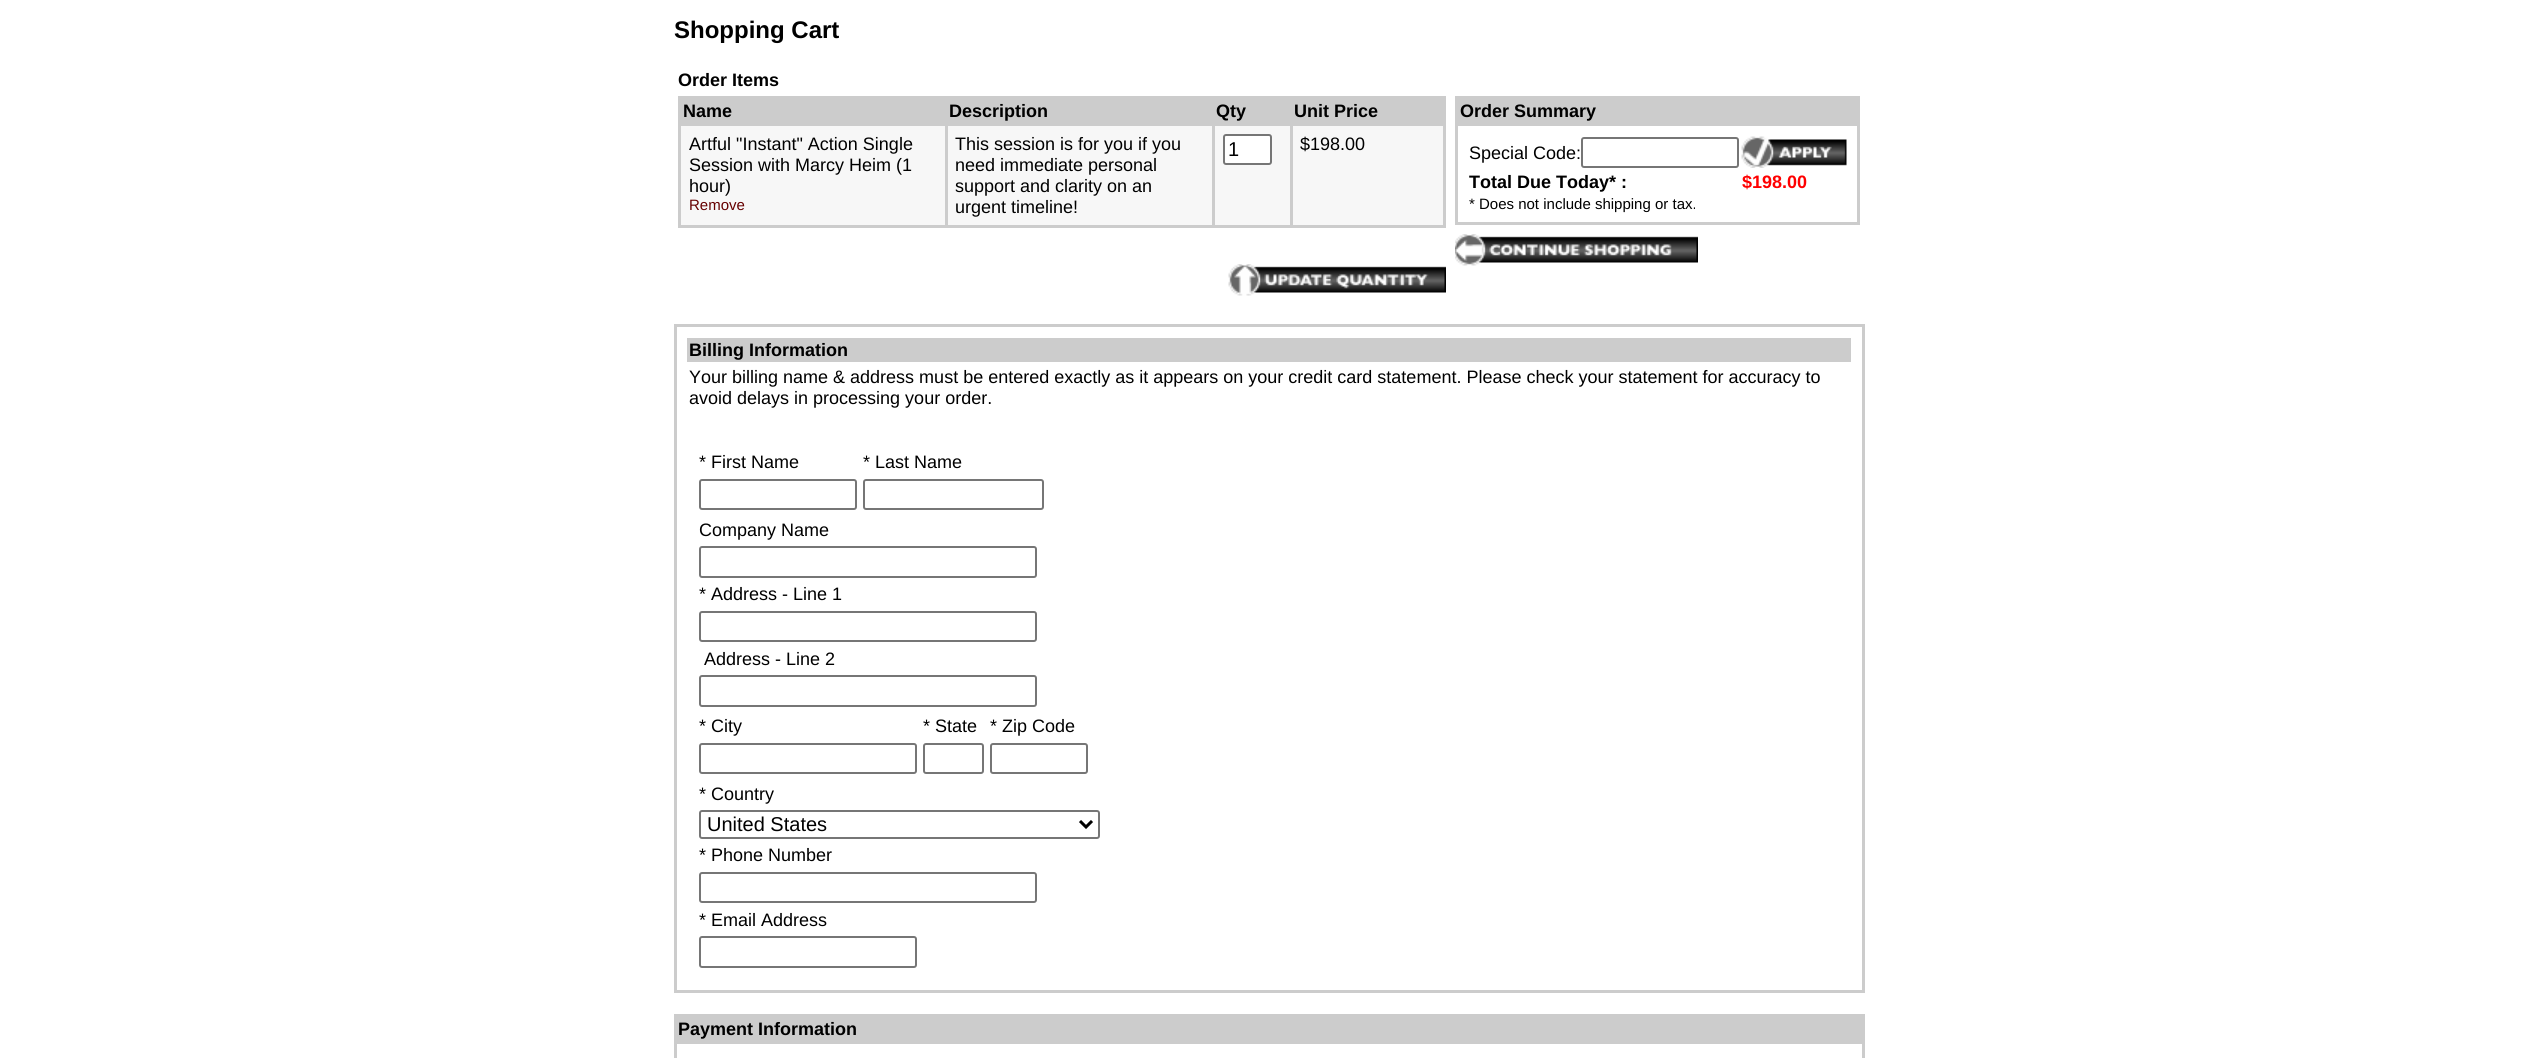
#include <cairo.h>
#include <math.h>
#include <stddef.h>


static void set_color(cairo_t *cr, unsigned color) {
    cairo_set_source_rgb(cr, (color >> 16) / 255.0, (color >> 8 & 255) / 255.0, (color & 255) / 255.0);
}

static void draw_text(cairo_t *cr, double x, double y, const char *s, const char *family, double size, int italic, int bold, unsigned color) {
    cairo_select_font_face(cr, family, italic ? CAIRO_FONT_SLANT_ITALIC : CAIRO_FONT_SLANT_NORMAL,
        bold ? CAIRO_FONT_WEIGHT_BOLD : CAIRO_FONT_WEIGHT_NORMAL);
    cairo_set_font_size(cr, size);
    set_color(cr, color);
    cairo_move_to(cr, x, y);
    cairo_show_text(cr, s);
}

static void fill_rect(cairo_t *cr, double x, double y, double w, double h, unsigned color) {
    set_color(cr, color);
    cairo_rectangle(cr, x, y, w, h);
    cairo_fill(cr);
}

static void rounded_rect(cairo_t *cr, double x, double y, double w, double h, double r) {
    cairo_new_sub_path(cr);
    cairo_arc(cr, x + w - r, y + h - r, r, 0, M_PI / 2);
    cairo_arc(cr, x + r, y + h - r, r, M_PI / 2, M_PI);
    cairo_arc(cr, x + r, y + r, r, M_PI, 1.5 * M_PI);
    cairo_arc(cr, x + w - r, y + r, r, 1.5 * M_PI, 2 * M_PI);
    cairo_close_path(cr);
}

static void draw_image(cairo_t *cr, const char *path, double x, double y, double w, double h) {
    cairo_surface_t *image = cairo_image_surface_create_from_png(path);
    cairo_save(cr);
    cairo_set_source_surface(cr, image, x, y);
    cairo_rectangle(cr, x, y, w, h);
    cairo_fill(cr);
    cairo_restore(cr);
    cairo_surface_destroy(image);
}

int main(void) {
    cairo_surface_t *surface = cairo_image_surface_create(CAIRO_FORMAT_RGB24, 2538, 1058);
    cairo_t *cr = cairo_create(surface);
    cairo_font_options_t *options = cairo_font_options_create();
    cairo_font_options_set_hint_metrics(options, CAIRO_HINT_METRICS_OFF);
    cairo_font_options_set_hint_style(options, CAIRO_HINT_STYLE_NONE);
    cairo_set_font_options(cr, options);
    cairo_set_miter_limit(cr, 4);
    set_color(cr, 0xFFFFFF);
    cairo_paint(cr);
    draw_text(cr, 674, 38, "Shopping Cart", "Liberation Sans", 24, 0, 1, 0x000000);
    draw_text(cr, 678, 86, "Order Items", "Liberation Sans", 18, 0, 1, 0x000000);
    fill_rect(cr, 678, 96, 768, 132, 0xCCCCCC);
    draw_text(cr, 683, 117, "Name", "Liberation Sans", 18, 0, 1, 0x000000);
    draw_text(cr, 949, 117, "Description", "Liberation Sans", 18, 0, 1, 0x000000);
    draw_text(cr, 1216, 117, "Qty", "Liberation Sans", 18, 0, 1, 0x000000);
    draw_text(cr, 1294, 117, "Unit Price", "Liberation Sans", 18, 0, 1, 0x000000);
    fill_rect(cr, 681, 126, 264, 99, 0xF7F7F7);
    draw_text(cr, 689, 150, "Artful \"Instant\" Action Single", "Liberation Sans", 18, 0, 0, 0x000000);
    draw_text(cr, 689, 171, "Session with Marcy Heim (1", "Liberation Sans", 18, 0, 0, 0x000000);
    draw_text(cr, 689, 192, "hour)", "Liberation Sans", 18, 0, 0, 0x000000);
    draw_text(cr, 689, 210, "Remove", "Liberation Sans", 15, 0, 0, 0x660000);
    fill_rect(cr, 948, 126, 264, 99, 0xF7F7F7);
    draw_text(cr, 955, 150, "This session is for you if you", "Liberation Sans", 18, 0, 0, 0x000000);
    draw_text(cr, 955, 171, "need immediate personal", "Liberation Sans", 18, 0, 0, 0x000000);
    draw_text(cr, 955, 192, "support and clarity on an", "Liberation Sans", 18, 0, 0, 0x000000);
    draw_text(cr, 955, 213, "urgent timeline!", "Liberation Sans", 18, 0, 0, 0x000000);
    fill_rect(cr, 1215, 126, 75, 99, 0xF7F7F7);
    set_color(cr, 0xFFFFFF);
    rounded_rect(cr, 1224, 135, 47, 29, 2);
    cairo_fill_preserve(cr);
    set_color(cr, 0x767676);
    cairo_stroke(cr);
    draw_text(cr, 1228, 156, "1", "Liberation Sans", 20, 0, 0, 0x000000);
    fill_rect(cr, 1293, 126, 150, 99, 0xF7F7F7);
    draw_text(cr, 1300, 150, "$198.00", "Liberation Sans", 18, 0, 0, 0x000000);
    draw_image(cr, "assets/img1.png", 1228, 264, 218, 32);
    fill_rect(cr, 1455, 96, 405, 129, 0xCCCCCC);
    draw_text(cr, 1460, 117, "Order Summary", "Liberation Sans", 18, 0, 1, 0x000000);
    fill_rect(cr, 1458, 126, 399, 96, 0xFFFFFF);
    draw_text(cr, 1469, 159, "Special Code:", "Liberation Sans", 18, 0, 0, 0x000000);
    rounded_rect(cr, 1582, 138, 156, 29, 2);
    set_color(cr, 0x767676);
    cairo_stroke(cr);
    draw_image(cr, "assets/img2.png", 1741, 136, 106, 32);
    draw_text(cr, 1469, 188, "Total Due Today* :", "Liberation Sans", 18, 0, 1, 0x000000);
    draw_text(cr, 1742, 188, "$198.00", "Liberation Sans", 18, 0, 1, 0xFF0000);
    draw_text(cr, 1469, 209, "* Does not include shipping or tax.", "Liberation Sans", 15, 0, 0, 0x000000);
    draw_image(cr, "assets/img3.png", 1455, 234, 243, 32);
    fill_rect(cr, 674, 324, 1191, 669, 0xCCCCCC);
    fill_rect(cr, 677, 327, 1185, 663, 0xFFFFFF);
    fill_rect(cr, 687, 338, 1164, 24, 0xCCCCCC);
    draw_text(cr, 689, 356, "Billing Information", "Liberation Sans", 18, 0, 1, 0x000000);
    draw_text(cr, 689, 383, "Your billing name & address must be entered exactly as it appears on your credit card statement. Please check your statement for accuracy to", "Liberation Sans", 18, 0, 0, 0x000000);
    draw_text(cr, 689, 404, "avoid delays in processing your order.", "Liberation Sans", 18, 0, 0, 0x000000);
    draw_text(cr, 699, 468, "* First Name", "Liberation Sans", 18, 0, 0, 0x000000);
    draw_text(cr, 863, 468, "* Last Name", "Liberation Sans", 18, 0, 0, 0x000000);
    rounded_rect(cr, 700, 480, 156, 29, 2);
    set_color(cr, 0x767676);
    cairo_stroke(cr);
    rounded_rect(cr, 864, 480, 179, 29, 2);
    cairo_stroke(cr);
    draw_text(cr, 699, 536, "Company Name", "Liberation Sans", 18, 0, 0, 0x000000);
    rounded_rect(cr, 700, 547, 336, 30, 2);
    set_color(cr, 0x767676);
    cairo_stroke(cr);
    draw_text(cr, 699, 600, "* Address - Line 1", "Liberation Sans", 18, 0, 0, 0x000000);
    rounded_rect(cr, 700, 612, 336, 29, 2);
    set_color(cr, 0x767676);
    cairo_stroke(cr);
    draw_text(cr, 704, 665, "Address - Line 2", "Liberation Sans", 18, 0, 0, 0x000000);
    rounded_rect(cr, 700, 676, 336, 30, 2);
    set_color(cr, 0x767676);
    cairo_stroke(cr);
    draw_text(cr, 699, 732, "* City", "Liberation Sans", 18, 0, 0, 0x000000);
    draw_text(cr, 923, 732, "* State", "Liberation Sans", 18, 0, 0, 0x000000);
    draw_text(cr, 990, 732, "* Zip Code", "Liberation Sans", 18, 0, 0, 0x000000);
    rounded_rect(cr, 700, 744, 216, 29, 2);
    set_color(cr, 0x767676);
    cairo_stroke(cr);
    rounded_rect(cr, 924, 744, 59, 29, 2);
    cairo_stroke(cr);
    rounded_rect(cr, 991, 744, 96, 29, 2);
    cairo_stroke(cr);
    draw_text(cr, 699, 800, "* Country", "Liberation Sans", 18, 0, 0, 0x000000);
    rounded_rect(cr, 700, 811, 399, 27, 2);
    set_color(cr, 0x767676);
    cairo_stroke(cr);
    cairo_new_path(cr);
    cairo_move_to(cr, 1080, 821);
    cairo_line_to(cr, 1086, 827);
    cairo_line_to(cr, 1092, 821);
    set_color(cr, 0x000000);
    cairo_set_line_width(cr, 3);
    cairo_stroke(cr);
    draw_text(cr, 707, 831, "United States", "Liberation Sans", 20, 0, 0, 0x000000);
    draw_text(cr, 699, 861, "* Phone Number", "Liberation Sans", 18, 0, 0, 0x000000);
    rounded_rect(cr, 700, 873, 336, 29, 2);
    set_color(cr, 0x767676);
    cairo_set_line_width(cr, 2);
    cairo_stroke(cr);
    draw_text(cr, 699, 926, "* Email Address", "Liberation Sans", 18, 0, 0, 0x000000);
    rounded_rect(cr, 700, 937, 216, 30, 2);
    set_color(cr, 0x767676);
    cairo_stroke(cr);
    fill_rect(cr, 674, 1014, 1191, 44, 0xCCCCCC);
    draw_text(cr, 678, 1035, "Payment Information", "Liberation Sans", 18, 0, 1, 0x000000);
    fill_rect(cr, 677, 1044, 1185, 14, 0xFFFFFF);
    cairo_surface_write_to_png(surface, "output.png");
    cairo_font_options_destroy(options);
    cairo_destroy(cr);
    cairo_surface_destroy(surface);
    return 0;
}
